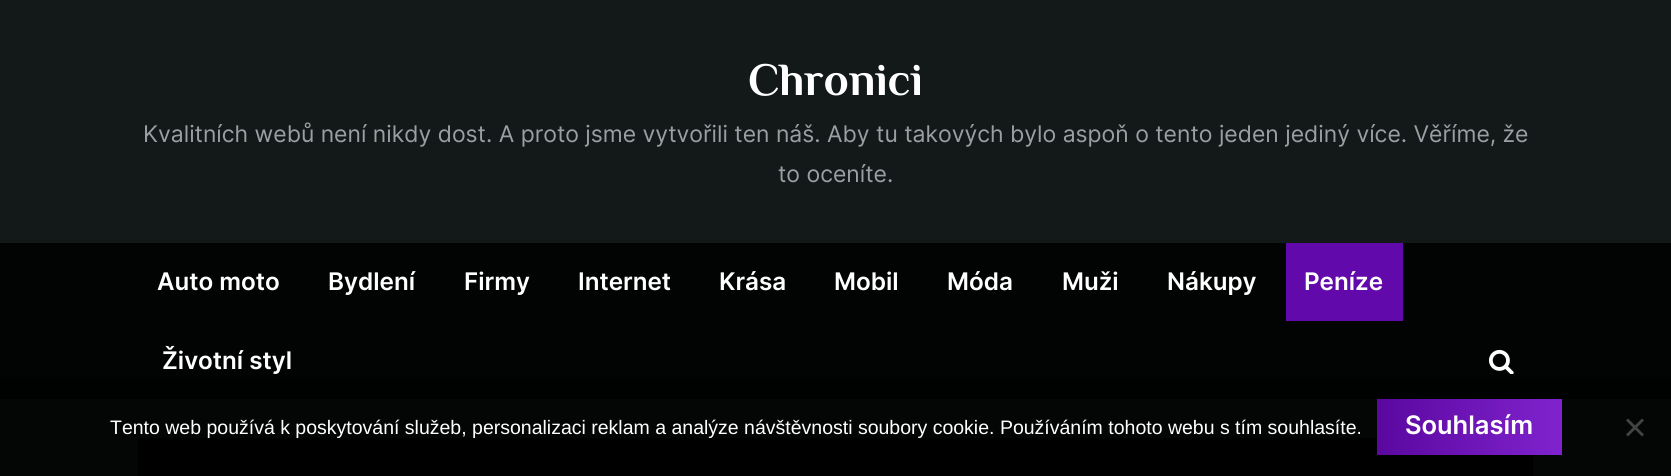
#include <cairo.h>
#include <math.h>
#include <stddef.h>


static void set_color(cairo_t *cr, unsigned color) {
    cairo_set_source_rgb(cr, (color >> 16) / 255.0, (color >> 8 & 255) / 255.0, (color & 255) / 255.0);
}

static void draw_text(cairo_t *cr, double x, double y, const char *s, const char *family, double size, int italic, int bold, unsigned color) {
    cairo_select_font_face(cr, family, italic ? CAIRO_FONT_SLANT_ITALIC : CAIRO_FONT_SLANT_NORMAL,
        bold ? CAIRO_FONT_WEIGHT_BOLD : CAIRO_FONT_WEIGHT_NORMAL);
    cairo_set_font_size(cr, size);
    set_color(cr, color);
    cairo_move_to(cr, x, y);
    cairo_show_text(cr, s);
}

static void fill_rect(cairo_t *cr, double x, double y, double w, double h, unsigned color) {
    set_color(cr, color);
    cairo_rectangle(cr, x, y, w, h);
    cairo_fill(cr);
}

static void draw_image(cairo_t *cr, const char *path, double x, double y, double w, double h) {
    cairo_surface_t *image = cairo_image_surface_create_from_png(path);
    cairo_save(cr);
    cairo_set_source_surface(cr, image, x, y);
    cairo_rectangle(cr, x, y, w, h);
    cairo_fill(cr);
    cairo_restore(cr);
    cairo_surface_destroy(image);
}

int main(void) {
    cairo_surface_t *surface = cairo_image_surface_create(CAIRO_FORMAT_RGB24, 1671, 476);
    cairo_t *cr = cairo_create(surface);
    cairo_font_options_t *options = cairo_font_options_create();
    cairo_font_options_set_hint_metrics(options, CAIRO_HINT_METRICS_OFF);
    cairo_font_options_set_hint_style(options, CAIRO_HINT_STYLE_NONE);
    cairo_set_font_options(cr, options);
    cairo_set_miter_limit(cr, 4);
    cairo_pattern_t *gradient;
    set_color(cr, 0x131919);
    cairo_paint(cr);
    fill_rect(cr, 0, 399, 1671, 77, 0x040505);
    draw_text(cr, 748, 95, "Chronici", "Philosopher", 46, 0, 1, 0xFFFFFF);
    draw_text(cr, 143, 142, "Kvalitních webů není nikdy dost. A proto jsme vytvořili ten náš. Aby tu takových bylo aspoň o tento jeden jediný více. Věříme, že", "Inter", 22.95, 0, 0, 0x999FA3);
    draw_text(cr, 778, 182, "to oceníte.", "Inter", 22.95, 0, 0, 0x999FA3);
    fill_rect(cr, 0, 243, 1671, 134, 0x020303);
    fill_rect(cr, 0, 377, 1671, 22, 0x000101);
    draw_text(cr, 157, 290, "Auto moto", "Inter SemiBold", 24.25, 0, 0, 0xFFFFFF);
    draw_text(cr, 328, 290, "Bydlení", "Inter SemiBold", 24.25, 0, 0, 0xFFFFFF);
    draw_text(cr, 464, 290, "Firmy", "Inter SemiBold", 24.25, 0, 0, 0xFFFFFF);
    draw_text(cr, 578, 290, "Internet", "Inter SemiBold", 24.25, 0, 0, 0xFFFFFF);
    draw_text(cr, 719, 290, "Krása", "Inter SemiBold", 24.25, 0, 0, 0xFFFFFF);
    draw_text(cr, 834, 290, "Mobil", "Inter SemiBold", 24.25, 0, 0, 0xFFFFFF);
    draw_text(cr, 947, 290, "Móda", "Inter SemiBold", 24.25, 0, 0, 0xFFFFFF);
    draw_text(cr, 1062, 290, "Muži", "Inter SemiBold", 24.25, 0, 0, 0xFFFFFF);
    draw_text(cr, 1167, 290, "Nákupy", "Inter SemiBold", 24.25, 0, 0, 0xFFFFFF);
    fill_rect(cr, 1286, 243, 117, 78, 0x6209AB);
    draw_text(cr, 1304, 290, "Peníze", "Inter SemiBold", 24.25, 0, 0, 0xFFFFFF);
    draw_text(cr, 162, 369, "Životní styl", "Inter SemiBold", 24.25, 0, 0, 0xFFFFFF);
    draw_image(cr, "assets/img1.png", 1488, 349, 26, 25);
    fill_rect(cr, 138, 438, 1395, 38, 0x000000);
    draw_text(cr, 110, 434, "Tento web používá k poskytování služeb, personalizaci reklam a analýze návštěvnosti soubory cookie. Používáním tohoto webu s tím souhlasíte.", "Liberation Sans", 19.5, 0, 0, 0xFFFFFF);
    gradient = cairo_pattern_create_linear(1023, 427, 1380, 427);
    cairo_pattern_add_color_stop_rgba(gradient, 0, 0.357, 0.031, 0.627, 1);
    cairo_pattern_add_color_stop_rgba(gradient, 0.51, 0.502, 0.137, 0.808, 1);
    cairo_pattern_add_color_stop_rgba(gradient, 1, 0.357, 0.031, 0.627, 1);
    cairo_set_source(cr, gradient);
    cairo_pattern_destroy(gradient);
    cairo_rectangle(cr, 1377, 399, 3, 56);
    cairo_fill(cr);
    gradient = cairo_pattern_create_linear(1380, 427, 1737, 427);
    cairo_pattern_add_color_stop_rgba(gradient, 0, 0.357, 0.031, 0.627, 1);
    cairo_pattern_add_color_stop_rgba(gradient, 0.51, 0.502, 0.137, 0.808, 1);
    cairo_pattern_add_color_stop_rgba(gradient, 1, 0.357, 0.031, 0.627, 1);
    cairo_set_source(cr, gradient);
    cairo_pattern_destroy(gradient);
    cairo_rectangle(cr, 1380, 399, 182, 56);
    cairo_fill(cr);
    draw_text(cr, 1405, 434, "Souhlasím", "Inter SemiBold", 25.5, 0, 0, 0xFFFFFF);
    set_color(cr, 0x424343);
    cairo_new_path(cr);
    cairo_move_to(cr, 1642, 418.5);
    cairo_line_to(cr, 1644, 420.5);
    cairo_line_to(cr, 1628, 436.5);
    cairo_line_to(cr, 1626, 434.5);
    cairo_close_path(cr);
    cairo_fill(cr);
    cairo_new_path(cr);
    cairo_move_to(cr, 1626, 420.5);
    cairo_line_to(cr, 1628, 418.5);
    cairo_line_to(cr, 1644, 434.5);
    cairo_line_to(cr, 1642, 436.5);
    cairo_close_path(cr);
    cairo_fill(cr);
    cairo_surface_write_to_png(surface, "output.png");
    cairo_font_options_destroy(options);
    cairo_destroy(cr);
    cairo_surface_destroy(surface);
    return 0;
}
